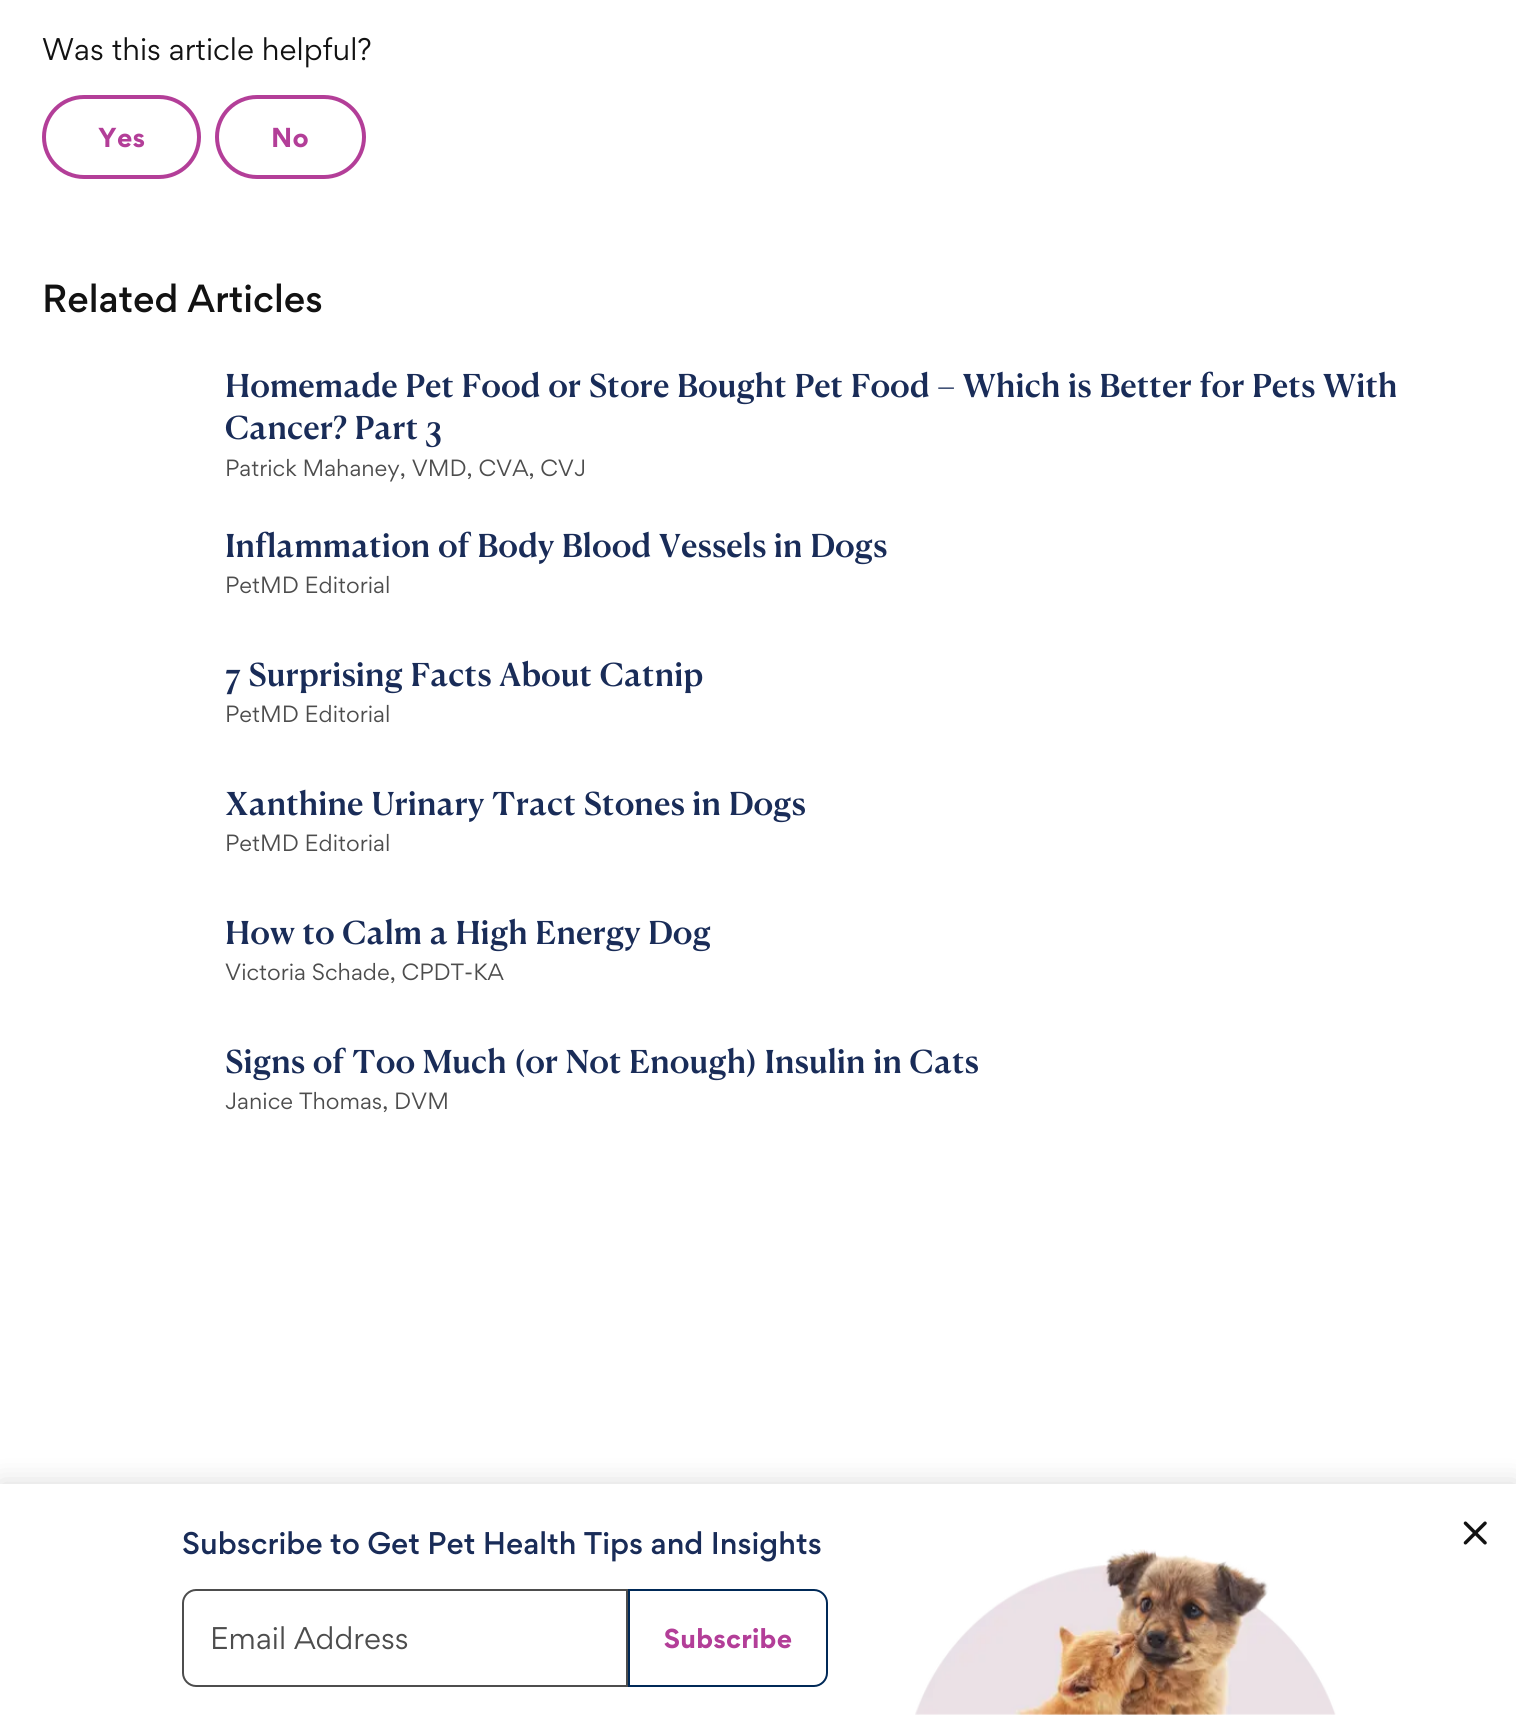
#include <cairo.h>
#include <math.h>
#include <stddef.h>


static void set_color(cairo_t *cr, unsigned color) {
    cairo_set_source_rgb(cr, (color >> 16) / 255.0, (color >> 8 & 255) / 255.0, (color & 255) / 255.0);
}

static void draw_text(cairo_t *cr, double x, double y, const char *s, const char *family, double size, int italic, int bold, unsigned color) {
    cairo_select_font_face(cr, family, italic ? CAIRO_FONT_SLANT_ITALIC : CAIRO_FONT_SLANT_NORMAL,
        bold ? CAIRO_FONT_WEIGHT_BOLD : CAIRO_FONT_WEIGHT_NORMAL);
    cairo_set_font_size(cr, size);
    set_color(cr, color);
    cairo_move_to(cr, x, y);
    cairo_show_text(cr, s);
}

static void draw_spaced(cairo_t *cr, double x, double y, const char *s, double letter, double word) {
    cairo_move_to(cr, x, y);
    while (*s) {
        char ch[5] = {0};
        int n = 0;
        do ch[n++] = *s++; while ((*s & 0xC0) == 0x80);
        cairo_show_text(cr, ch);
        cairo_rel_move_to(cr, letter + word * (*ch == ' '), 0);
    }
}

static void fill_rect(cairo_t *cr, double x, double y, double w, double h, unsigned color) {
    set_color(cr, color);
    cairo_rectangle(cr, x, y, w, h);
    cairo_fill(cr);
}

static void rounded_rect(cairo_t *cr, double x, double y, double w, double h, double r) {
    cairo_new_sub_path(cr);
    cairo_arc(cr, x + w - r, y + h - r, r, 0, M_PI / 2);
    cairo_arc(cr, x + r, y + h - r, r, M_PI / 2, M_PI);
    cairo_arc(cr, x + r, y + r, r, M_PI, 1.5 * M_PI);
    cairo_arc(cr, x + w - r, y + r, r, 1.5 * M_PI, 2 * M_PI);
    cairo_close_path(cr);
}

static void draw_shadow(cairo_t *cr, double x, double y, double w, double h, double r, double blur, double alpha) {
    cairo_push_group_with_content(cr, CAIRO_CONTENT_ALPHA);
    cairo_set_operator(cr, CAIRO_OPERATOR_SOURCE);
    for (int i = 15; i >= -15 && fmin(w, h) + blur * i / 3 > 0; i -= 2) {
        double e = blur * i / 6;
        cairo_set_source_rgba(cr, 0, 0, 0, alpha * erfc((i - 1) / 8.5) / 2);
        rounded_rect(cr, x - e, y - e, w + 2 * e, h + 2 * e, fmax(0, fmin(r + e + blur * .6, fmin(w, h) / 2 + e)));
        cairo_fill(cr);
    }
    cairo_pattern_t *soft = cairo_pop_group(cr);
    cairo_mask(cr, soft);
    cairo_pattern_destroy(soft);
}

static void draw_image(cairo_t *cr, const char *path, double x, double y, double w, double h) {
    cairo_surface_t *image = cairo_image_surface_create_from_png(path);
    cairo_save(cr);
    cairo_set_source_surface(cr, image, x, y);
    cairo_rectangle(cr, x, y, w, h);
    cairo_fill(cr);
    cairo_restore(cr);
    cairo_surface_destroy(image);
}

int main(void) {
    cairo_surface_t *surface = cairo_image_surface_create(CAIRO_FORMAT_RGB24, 1516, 1715);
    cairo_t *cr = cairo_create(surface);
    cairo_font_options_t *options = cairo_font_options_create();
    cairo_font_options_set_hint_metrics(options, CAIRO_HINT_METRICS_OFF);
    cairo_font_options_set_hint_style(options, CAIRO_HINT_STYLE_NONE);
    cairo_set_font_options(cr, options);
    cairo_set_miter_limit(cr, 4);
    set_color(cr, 0xFFFFFF);
    cairo_paint(cr);
    draw_text(cr, 42, 60, "Was this article helpful?", "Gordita", 28, 0, 0, 0x121212);
    rounded_rect(cr, 44, 97, 155, 80, 40);
    set_color(cr, 0xB33E98);
    cairo_set_line_width(cr, 4);
    cairo_stroke(cr);
    cairo_select_font_face(cr, "Gordita", CAIRO_FONT_SLANT_NORMAL, CAIRO_FONT_WEIGHT_BOLD);
    cairo_set_font_size(cr, 24.5);
    draw_spaced(cr, 98, 147, "Yes", 0.25, 0);
    rounded_rect(cr, 217, 97, 147, 80, 40);
    cairo_stroke(cr);
    draw_spaced(cr, 271, 147, "No", 0.25, 0);
    draw_text(cr, 42, 312, "Related Articles", "Gordita Medium", 35, 0, 0, 0x121212);
    draw_text(cr, 225, 397, "Homemade Pet Food or Store Bought Pet Food – Which is Better for Pets With", "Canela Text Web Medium", 31.5, 0, 0, 0x192C58);
    draw_text(cr, 225, 439, "Cancer? Part 3", "Canela Text Web Medium", 31.5, 0, 0, 0x192C58);
    draw_text(cr, 225, 476, "Patrick Mahaney, VMD, CVA, CVJ", "Gordita", 21, 0, 0, 0x4D4D4D);
    draw_text(cr, 225, 557, "Inflammation of Body Blood Vessels in Dogs", "Canela Text Web Medium", 31.5, 0, 0, 0x192C58);
    draw_text(cr, 225, 593, "PetMD Editorial", "Gordita", 21, 0, 0, 0x4D4D4D);
    draw_text(cr, 225, 686, "7 Surprising Facts About Catnip", "Canela Text Web Medium", 31.5, 0, 0, 0x192C58);
    draw_text(cr, 225, 722, "PetMD Editorial", "Gordita", 21, 0, 0, 0x4D4D4D);
    draw_text(cr, 225, 815, "Xanthine Urinary Tract Stones in Dogs", "Canela Text Web Medium", 31.5, 0, 0, 0x192C58);
    draw_text(cr, 225, 851, "PetMD Editorial", "Gordita", 21, 0, 0, 0x4D4D4D);
    draw_text(cr, 225, 944, "How to Calm a High Energy Dog", "Canela Text Web Medium", 31.5, 0, 0, 0x192C58);
    draw_text(cr, 225, 980, "Victoria Schade, CPDT-KA", "Gordita", 21, 0, 0, 0x4D4D4D);
    draw_text(cr, 225, 1073, "Signs of Too Much (or Not Enough) Insulin in Cats", "Canela Text Web Medium", 31.5, 0, 0, 0x192C58);
    draw_text(cr, 225, 1109, "Janice Thomas, DVM", "Gordita", 21, 0, 0, 0x4D4D4D);
    set_color(cr, 0x000000);
    draw_shadow(cr, 0, 1484, 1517, 231, 0, 14, 0.15);
    fill_rect(cr, 0, 1484, 1516, 231, 0xFFFFFF);
    draw_text(cr, 182, 1554, "Subscribe to Get Pet Health Tips and Insights", "Gordita Medium", 28, 0, 0, 0x192C58);
    cairo_new_path(cr);
    cairo_move_to(cr, 196, 1590);
    cairo_line_to(cr, 627, 1590);
    cairo_line_to(cr, 627, 1686);
    cairo_line_to(cr, 196, 1686);
    cairo_curve_to(cr, 189, 1686, 183, 1680, 183, 1673);
    cairo_line_to(cr, 183, 1603);
    cairo_curve_to(cr, 183, 1596, 189, 1590, 196, 1590);
    cairo_close_path(cr);
    set_color(cr, 0x4D4D4D);
    cairo_set_line_width(cr, 2);
    cairo_stroke(cr);
    draw_text(cr, 210, 1649, "Email Address", "Gordita", 28, 0, 0, 0x4D4D4D);
    cairo_new_path(cr);
    cairo_move_to(cr, 629, 1590);
    cairo_line_to(cr, 814, 1590);
    cairo_curve_to(cr, 821, 1590, 827, 1596, 827, 1603);
    cairo_line_to(cr, 827, 1673);
    cairo_curve_to(cr, 827, 1680, 821, 1686, 814, 1686);
    cairo_line_to(cr, 629, 1686);
    cairo_close_path(cr);
    set_color(cr, 0x002957);
    cairo_stroke(cr);
    cairo_select_font_face(cr, "Gordita", CAIRO_FONT_SLANT_NORMAL, CAIRO_FONT_WEIGHT_BOLD);
    cairo_set_font_size(cr, 24.5);
    set_color(cr, 0xB33E98);
    draw_spaced(cr, 664, 1648, "Subscribe", 0.25, 0);
    draw_image(cr, "assets/img1.png", 915, 1549, 421, 166);
    draw_image(cr, "assets/img2.png", 1463, 1521, 24, 24);
    cairo_surface_write_to_png(surface, "output.png");
    cairo_font_options_destroy(options);
    cairo_destroy(cr);
    cairo_surface_destroy(surface);
    return 0;
}
